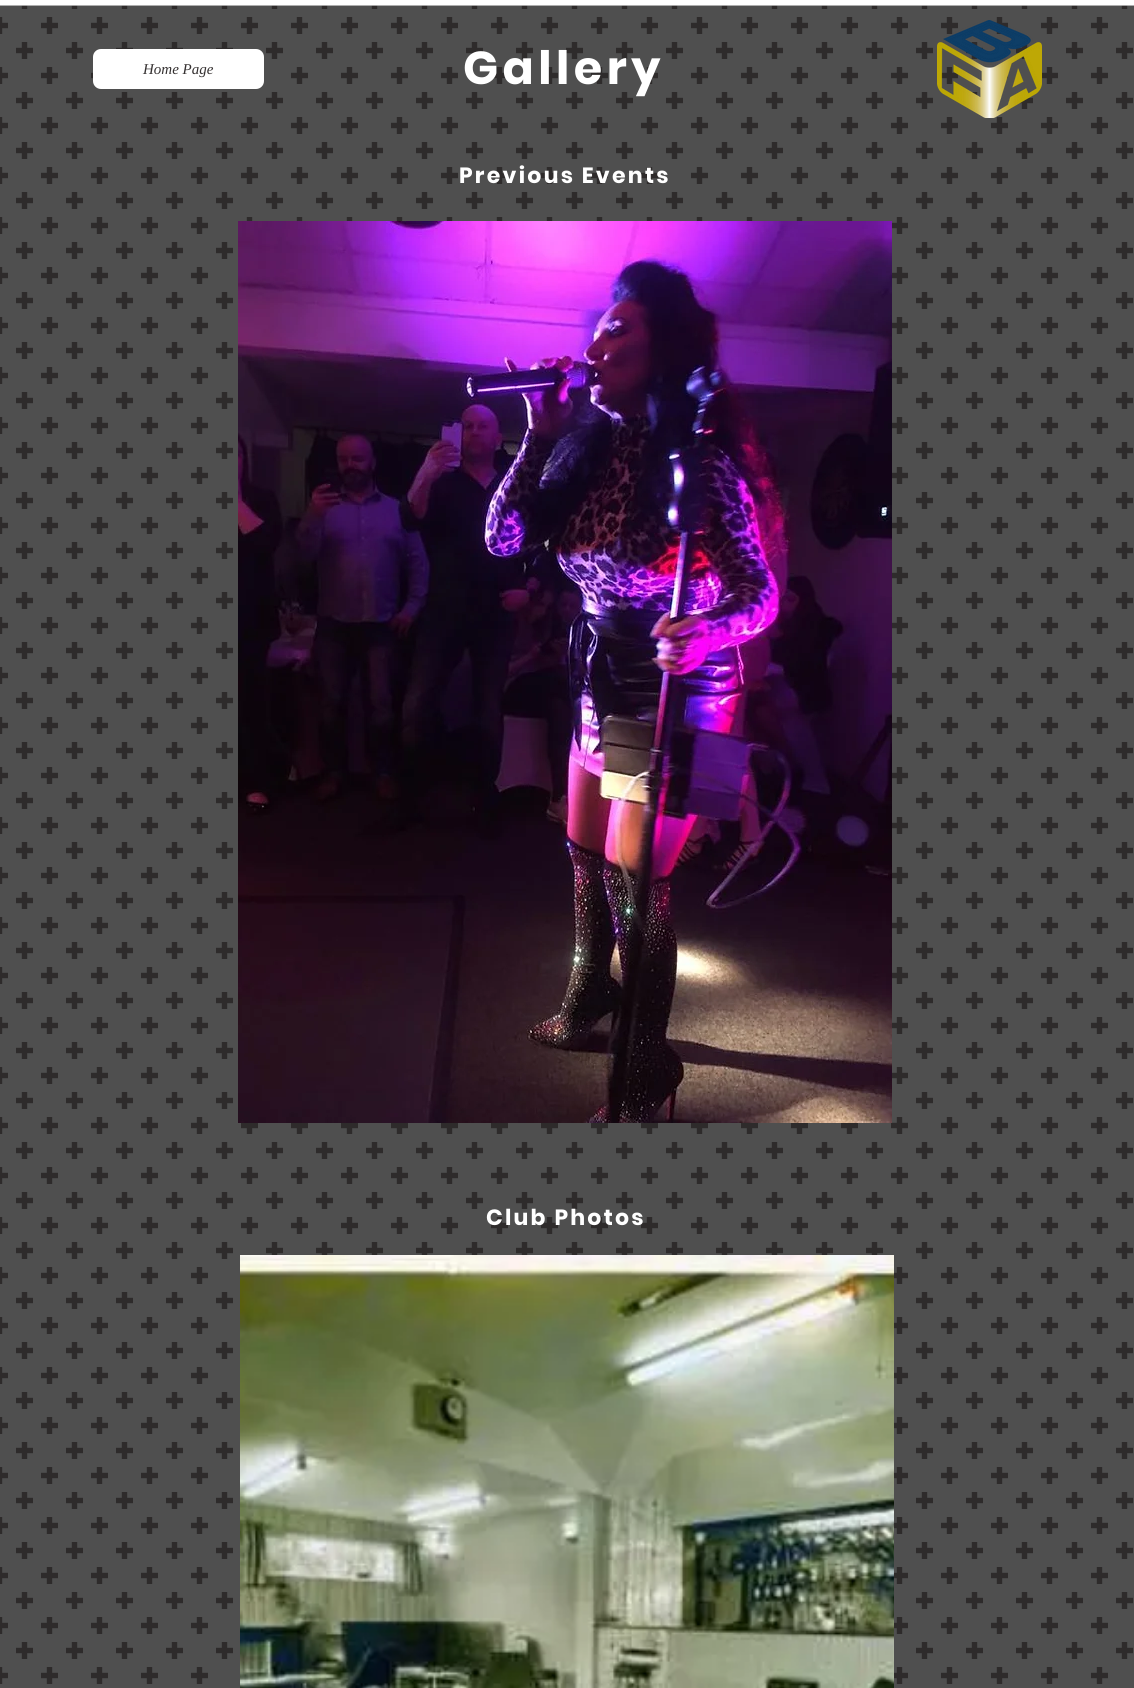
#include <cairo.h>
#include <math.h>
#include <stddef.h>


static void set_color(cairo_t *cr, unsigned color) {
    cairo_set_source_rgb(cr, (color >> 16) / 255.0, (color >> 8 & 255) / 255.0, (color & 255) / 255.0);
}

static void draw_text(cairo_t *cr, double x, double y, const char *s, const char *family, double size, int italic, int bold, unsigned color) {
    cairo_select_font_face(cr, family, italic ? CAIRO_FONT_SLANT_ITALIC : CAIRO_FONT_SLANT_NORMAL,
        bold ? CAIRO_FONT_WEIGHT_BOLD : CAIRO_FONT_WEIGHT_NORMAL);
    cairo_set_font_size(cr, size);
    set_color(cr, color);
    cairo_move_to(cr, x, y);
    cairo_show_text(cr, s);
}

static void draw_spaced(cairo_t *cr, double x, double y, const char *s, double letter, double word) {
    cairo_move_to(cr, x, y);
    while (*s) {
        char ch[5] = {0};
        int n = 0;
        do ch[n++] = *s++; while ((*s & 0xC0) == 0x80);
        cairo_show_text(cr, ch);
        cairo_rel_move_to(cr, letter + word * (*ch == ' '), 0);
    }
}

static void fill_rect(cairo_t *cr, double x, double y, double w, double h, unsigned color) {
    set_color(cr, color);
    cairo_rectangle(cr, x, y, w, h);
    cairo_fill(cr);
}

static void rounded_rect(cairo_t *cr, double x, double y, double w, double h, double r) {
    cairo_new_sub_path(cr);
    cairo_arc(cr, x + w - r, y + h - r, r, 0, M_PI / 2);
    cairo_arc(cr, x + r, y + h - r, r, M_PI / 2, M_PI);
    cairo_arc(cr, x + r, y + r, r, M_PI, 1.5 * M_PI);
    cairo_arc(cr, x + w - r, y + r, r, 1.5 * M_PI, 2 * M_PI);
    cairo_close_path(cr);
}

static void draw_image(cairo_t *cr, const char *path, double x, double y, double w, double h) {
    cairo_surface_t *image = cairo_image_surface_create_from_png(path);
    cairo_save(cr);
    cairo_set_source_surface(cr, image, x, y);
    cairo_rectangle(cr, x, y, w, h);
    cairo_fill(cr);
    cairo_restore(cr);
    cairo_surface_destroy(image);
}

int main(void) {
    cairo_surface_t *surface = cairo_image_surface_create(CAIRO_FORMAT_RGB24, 1134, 1688);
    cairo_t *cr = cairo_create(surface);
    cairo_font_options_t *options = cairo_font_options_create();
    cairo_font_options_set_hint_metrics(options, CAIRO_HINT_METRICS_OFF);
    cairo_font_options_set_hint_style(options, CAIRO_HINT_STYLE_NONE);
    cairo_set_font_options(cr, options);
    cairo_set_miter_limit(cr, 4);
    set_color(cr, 0x4F4F4F);
    cairo_paint(cr);
    draw_image(cr, "assets/img1.png", 0, 5, 1133, 1679);
    cairo_rectangle(cr, -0.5, -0.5, 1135, 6);
    cairo_set_source_rgba(cr, 0.8, 0.8, 0.8, 0.75);
    cairo_set_line_width(cr, 1);
    cairo_stroke(cr);
    fill_rect(cr, 0, 0, 1134, 5, 0xFFFFFF);
    rounded_rect(cr, 93, 49, 171, 40, 8);
    cairo_fill(cr);
    draw_text(cr, 143, 74, "Home Page", "Liberation Serif", 15, 1, 0, 0x353131);
    cairo_select_font_face(cr, "Poppins", CAIRO_FONT_SLANT_NORMAL, CAIRO_FONT_WEIGHT_BOLD);
    cairo_set_font_size(cr, 46);
    set_color(cr, 0xFFFFFF);
    draw_spaced(cr, 463, 84, "Gallery", 4.5, 0);
    draw_image(cr, "assets/img2.png", 937, 20, 105, 98);
    cairo_set_font_size(cr, 22);
    draw_spaced(cr, 459, 183, "Previous Events", 2.25, 0);
    draw_image(cr, "assets/img3.png", 238, 221, 654, 902);
    draw_spaced(cr, 486, 1225, "Club Photos", 2.25, 0);
    draw_image(cr, "assets/img4.png", 240, 1255, 654, 433);
    cairo_surface_write_to_png(surface, "output.png");
    cairo_font_options_destroy(options);
    cairo_destroy(cr);
    cairo_surface_destroy(surface);
    return 0;
}
